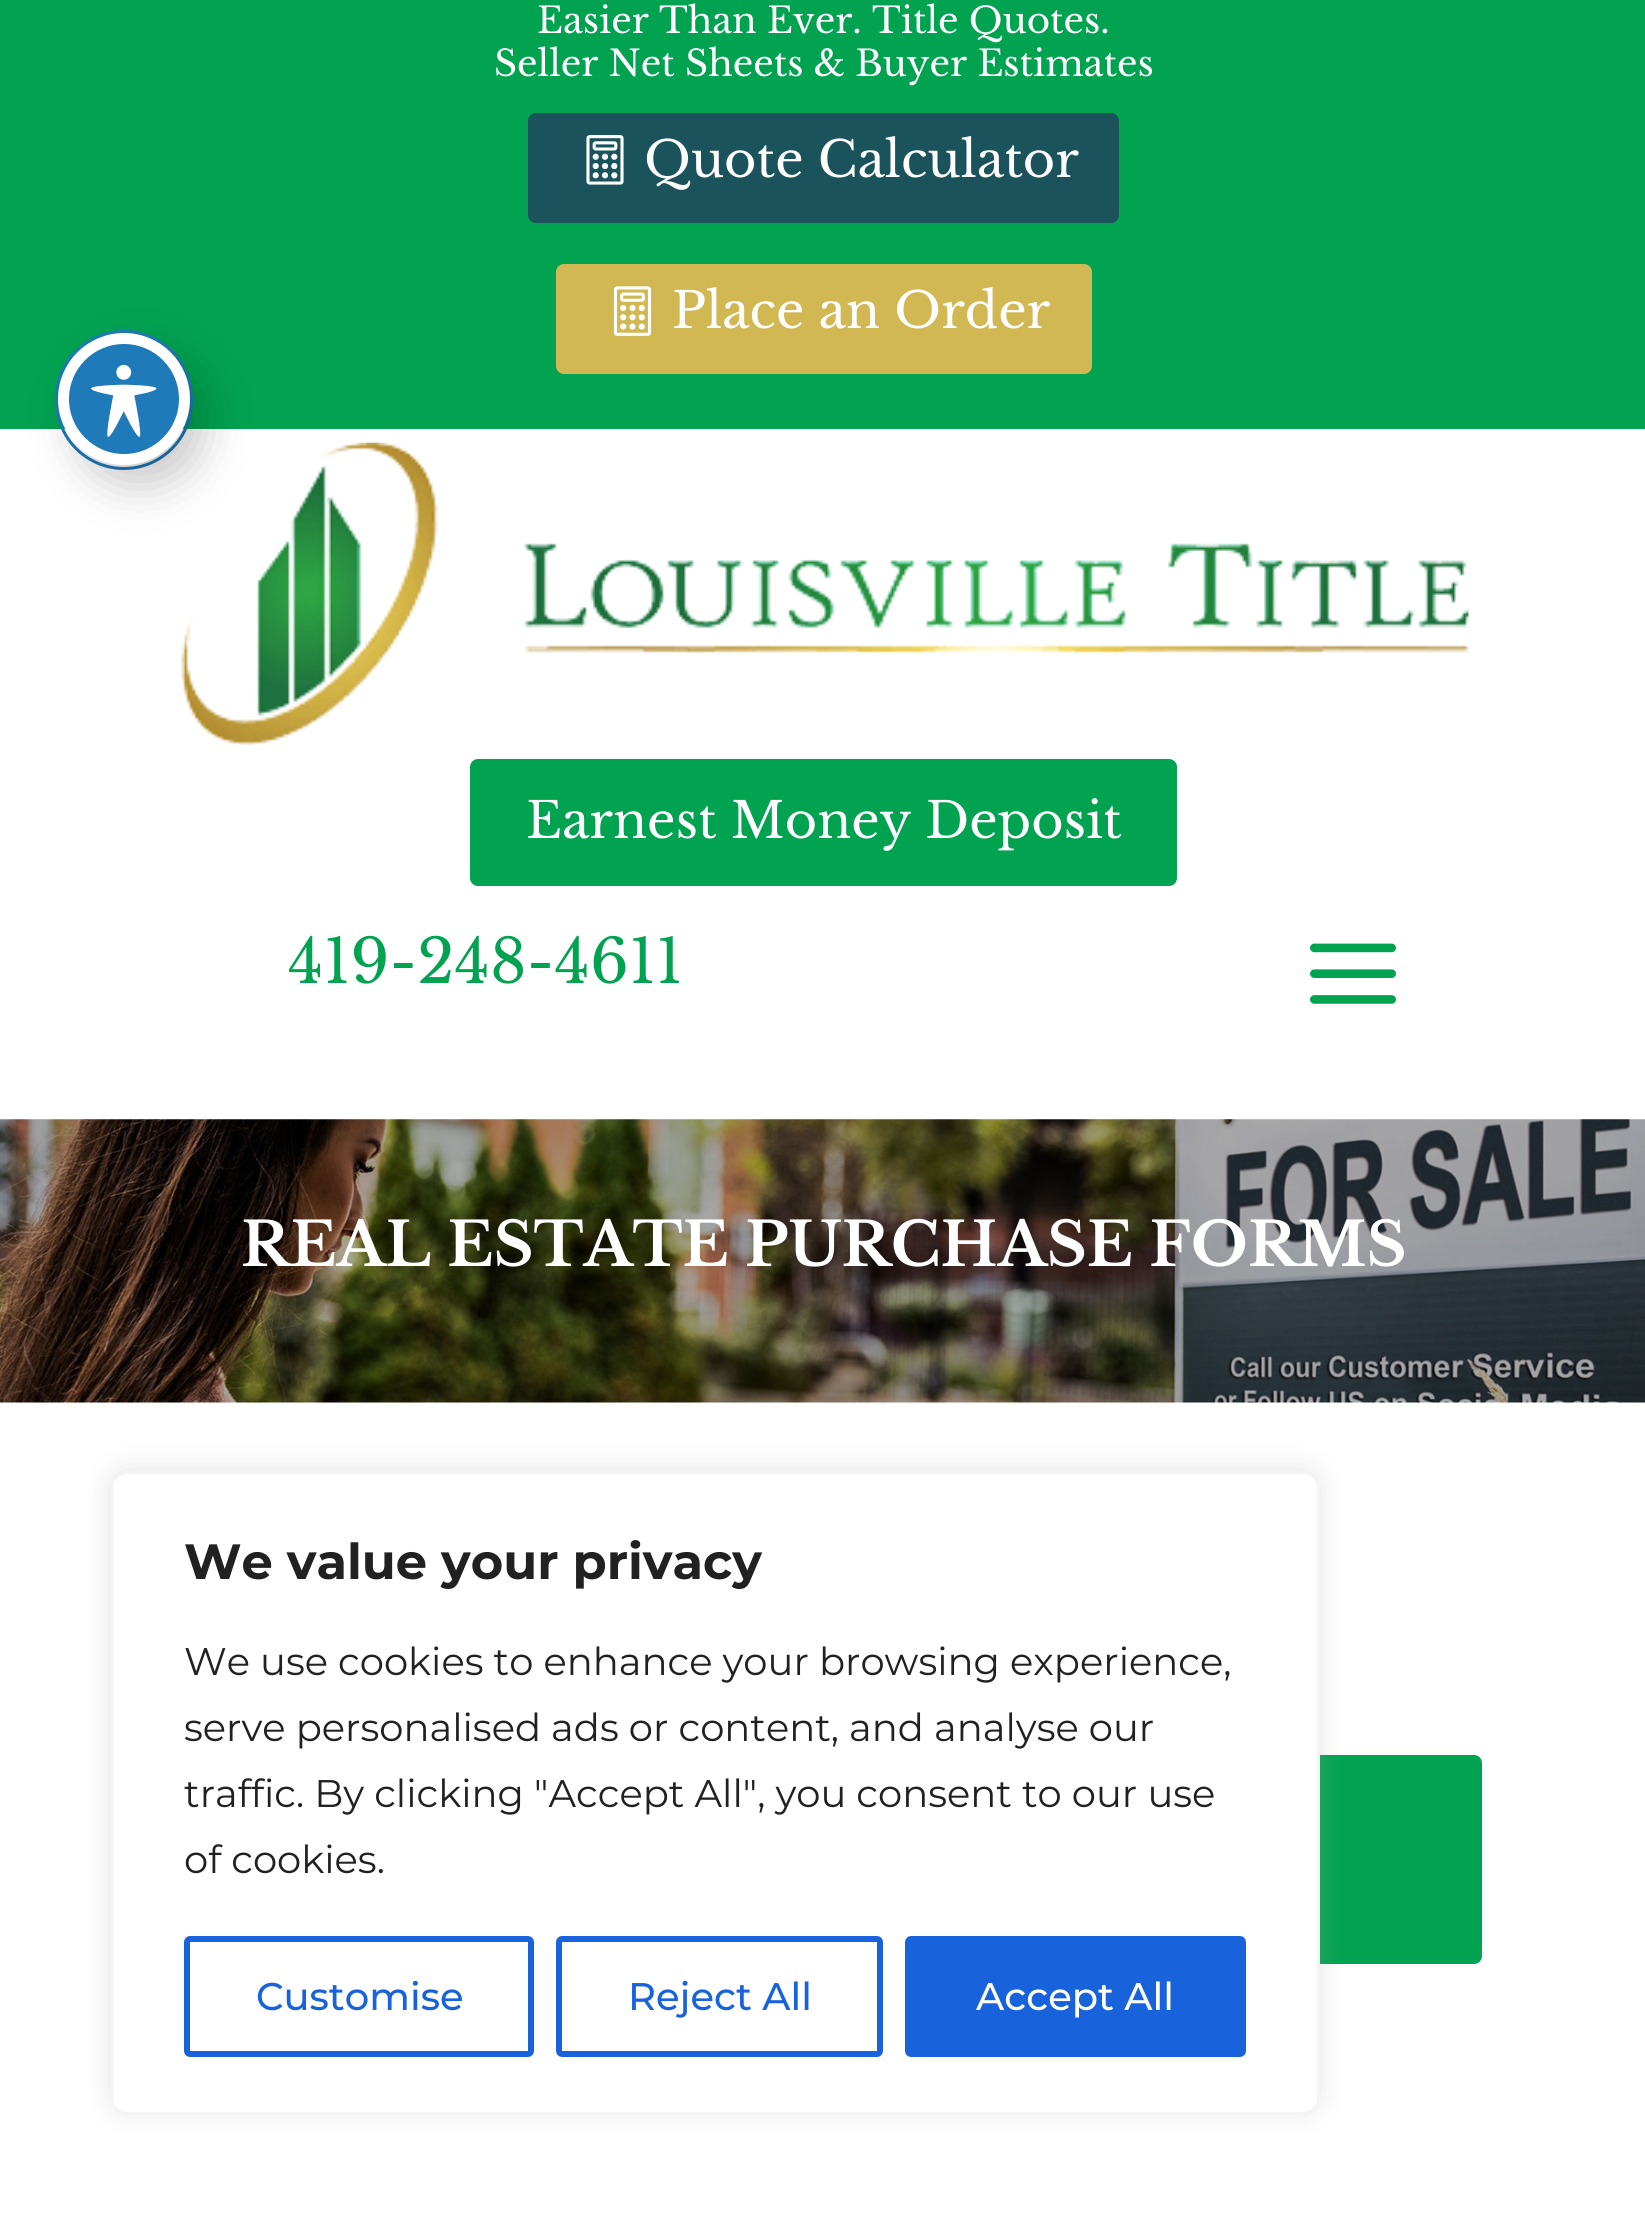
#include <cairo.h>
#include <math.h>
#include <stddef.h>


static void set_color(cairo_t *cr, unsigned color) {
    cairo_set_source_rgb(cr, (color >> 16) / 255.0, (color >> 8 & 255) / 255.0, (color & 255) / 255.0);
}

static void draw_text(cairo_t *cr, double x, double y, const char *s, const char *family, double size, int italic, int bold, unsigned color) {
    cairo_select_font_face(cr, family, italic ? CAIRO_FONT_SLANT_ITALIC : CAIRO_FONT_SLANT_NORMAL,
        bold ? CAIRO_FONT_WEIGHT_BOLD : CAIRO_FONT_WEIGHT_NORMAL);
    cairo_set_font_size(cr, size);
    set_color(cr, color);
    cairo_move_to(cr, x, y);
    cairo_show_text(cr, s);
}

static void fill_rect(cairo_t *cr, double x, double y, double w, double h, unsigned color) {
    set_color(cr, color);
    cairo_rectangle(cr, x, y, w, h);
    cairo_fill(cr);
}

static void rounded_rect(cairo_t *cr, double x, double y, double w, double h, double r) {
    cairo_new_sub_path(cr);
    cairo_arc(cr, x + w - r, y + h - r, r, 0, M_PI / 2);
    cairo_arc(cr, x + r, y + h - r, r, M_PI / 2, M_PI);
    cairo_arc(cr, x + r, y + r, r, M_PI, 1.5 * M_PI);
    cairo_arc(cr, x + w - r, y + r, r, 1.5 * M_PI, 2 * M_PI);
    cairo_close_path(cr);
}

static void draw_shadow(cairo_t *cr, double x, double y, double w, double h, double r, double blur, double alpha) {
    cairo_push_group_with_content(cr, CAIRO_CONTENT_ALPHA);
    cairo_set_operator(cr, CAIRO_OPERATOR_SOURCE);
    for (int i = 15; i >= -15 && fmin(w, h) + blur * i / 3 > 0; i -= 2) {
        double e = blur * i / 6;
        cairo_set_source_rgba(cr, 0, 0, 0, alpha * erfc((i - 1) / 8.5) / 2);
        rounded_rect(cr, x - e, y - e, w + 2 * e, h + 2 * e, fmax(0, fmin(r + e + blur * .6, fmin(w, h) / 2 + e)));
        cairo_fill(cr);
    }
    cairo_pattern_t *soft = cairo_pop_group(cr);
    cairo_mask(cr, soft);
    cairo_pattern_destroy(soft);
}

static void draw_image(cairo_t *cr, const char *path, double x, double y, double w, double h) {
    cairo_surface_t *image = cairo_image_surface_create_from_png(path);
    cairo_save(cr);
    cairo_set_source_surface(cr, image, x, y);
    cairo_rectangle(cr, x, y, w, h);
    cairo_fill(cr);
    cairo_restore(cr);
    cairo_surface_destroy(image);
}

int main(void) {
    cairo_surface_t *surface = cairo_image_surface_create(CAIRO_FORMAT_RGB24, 1645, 2224);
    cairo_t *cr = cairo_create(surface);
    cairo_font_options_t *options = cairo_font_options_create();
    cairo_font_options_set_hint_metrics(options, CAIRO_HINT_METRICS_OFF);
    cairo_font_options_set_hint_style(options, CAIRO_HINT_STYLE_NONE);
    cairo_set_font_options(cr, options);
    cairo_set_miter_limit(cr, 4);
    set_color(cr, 0xFFFFFF);
    cairo_paint(cr);
    fill_rect(cr, 0, 0, 1645, 429, 0x01A250);
    draw_image(cr, "assets/img4.png", 181, 442, 1288, 304);
    rounded_rect(cr, 56.5, 331.5, 135, 137, 67.5);
    set_color(cr, 0x1E7AB9);
    cairo_set_line_width(cr, 3);
    cairo_stroke(cr);
    set_color(cr, 0x000000);
    draw_shadow(cr, 74, 355, 132, 132, 66, 22, 0.2);
    set_color(cr, 0x1E7AB9);
    cairo_arc(cr, 124, 399, 60.5, 0, 2 * M_PI);
    cairo_fill_preserve(cr);
    set_color(cr, 0xFFFFFF);
    cairo_set_line_width(cr, 11);
    cairo_stroke(cr);
    draw_image(cr, "assets/img1.png", 91, 364, 66, 73);
    draw_text(cr, 537, 33, "Easier Than Ever. Title Quotes.", "Libre Baskerville", 35.75, 0, 0, 0xFFFFFF);
    draw_text(cr, 494, 76, "Seller Net Sheets & Buyer Estimates", "Libre Baskerville", 35.75, 0, 0, 0xFFFFFF);
    set_color(cr, 0x1A535B);
    rounded_rect(cr, 528, 113, 591, 110, 8);
    cairo_fill(cr);
    draw_image(cr, "assets/img2.png", 586, 135, 38, 50);
    draw_text(cr, 644, 177, "Quote Calculator", "Libre Baskerville", 49.5, 0, 0, 0xFFFFFF);
    set_color(cr, 0xD1B853);
    rounded_rect(cr, 556, 264, 536, 110, 8);
    cairo_fill(cr);
    draw_image(cr, "assets/img3.png", 613, 286, 39, 50);
    draw_text(cr, 672, 328, "Place an Order", "Libre Baskerville", 49.5, 0, 0, 0xFFFFFF);
    set_color(cr, 0x01A250);
    rounded_rect(cr, 470, 759, 707, 127, 8);
    cairo_fill(cr);
    draw_text(cr, 526, 838, "Earnest Money Deposit", "Libre Baskerville", 49.5, 0, 0, 0xFFFFFF);
    draw_text(cr, 288, 983, "419-248-4611", "Libre Baskerville", 60.5, 0, 0, 0x01A250);
    draw_image(cr, "assets/img5.png", 1310, 943, 86, 61);
    draw_image(cr, "assets/img6.png", 0, 1119, 1645, 284);
    draw_text(cr, 241, 1266, "REAL ESTATE PURCHASE FORMS", "Libre Baskerville", 60.5, 0, 1, 0xFFFFFF);
    set_color(cr, 0x01A250);
    rounded_rect(cr, 165, 1755, 1317, 209, 8);
    cairo_fill(cr);
    set_color(cr, 0xACABAB);
    draw_shadow(cr, 110, 1469, 1210, 643, 17, 14, 0.3);
    set_color(cr, 0xFFFFFF);
    rounded_rect(cr, 111.5, 1472.5, 1207, 641, 15.5);
    cairo_fill_preserve(cr);
    set_color(cr, 0xF4F4F4);
    cairo_set_line_width(cr, 3);
    cairo_stroke(cr);
    draw_text(cr, 184, 1579, "We value your privacy", "Montserrat", 49.5, 0, 1, 0x212121);
    draw_text(cr, 184, 1675, "We use cookies to enhance your browsing experience,", "Montserrat", 38.5, 0, 0, 0x212121);
    draw_text(cr, 184, 1741, "serve personalised ads or content, and analyse our", "Montserrat", 38.5, 0, 0, 0x212121);
    draw_text(cr, 184, 1807, "traffic. By clicking \"Accept All\", you consent to our use", "Montserrat", 38.5, 0, 0, 0x212121);
    draw_text(cr, 184, 1873, "of cookies.", "Montserrat", 38.5, 0, 0, 0x212121);
    rounded_rect(cr, 187, 1939, 344, 115, 3);
    set_color(cr, 0x1863DC);
    cairo_set_line_width(cr, 6);
    cairo_stroke(cr);
    draw_text(cr, 256, 2010, "Customise", "Montserrat Medium", 38.5, 0, 0, 0x1863DC);
    rounded_rect(cr, 559, 1939, 321, 115, 3);
    cairo_stroke(cr);
    draw_text(cr, 628, 2010, "Reject All", "Montserrat Medium", 38.5, 0, 0, 0x1863DC);
    rounded_rect(cr, 908, 1939, 335, 115, 3);
    cairo_fill_preserve(cr);
    cairo_stroke(cr);
    draw_text(cr, 976, 2010, "Accept All", "Montserrat Medium", 38.5, 0, 0, 0xFFFFFF);
    cairo_surface_write_to_png(surface, "output.png");
    cairo_font_options_destroy(options);
    cairo_destroy(cr);
    cairo_surface_destroy(surface);
    return 0;
}
